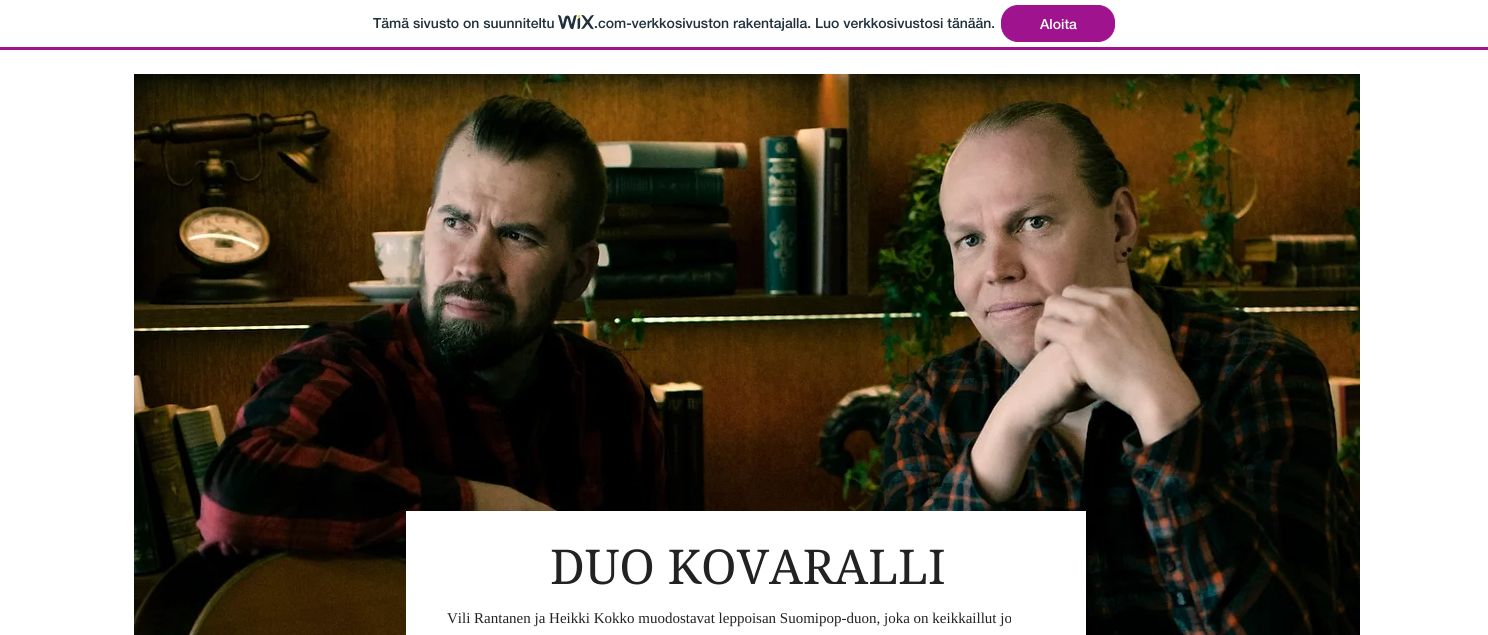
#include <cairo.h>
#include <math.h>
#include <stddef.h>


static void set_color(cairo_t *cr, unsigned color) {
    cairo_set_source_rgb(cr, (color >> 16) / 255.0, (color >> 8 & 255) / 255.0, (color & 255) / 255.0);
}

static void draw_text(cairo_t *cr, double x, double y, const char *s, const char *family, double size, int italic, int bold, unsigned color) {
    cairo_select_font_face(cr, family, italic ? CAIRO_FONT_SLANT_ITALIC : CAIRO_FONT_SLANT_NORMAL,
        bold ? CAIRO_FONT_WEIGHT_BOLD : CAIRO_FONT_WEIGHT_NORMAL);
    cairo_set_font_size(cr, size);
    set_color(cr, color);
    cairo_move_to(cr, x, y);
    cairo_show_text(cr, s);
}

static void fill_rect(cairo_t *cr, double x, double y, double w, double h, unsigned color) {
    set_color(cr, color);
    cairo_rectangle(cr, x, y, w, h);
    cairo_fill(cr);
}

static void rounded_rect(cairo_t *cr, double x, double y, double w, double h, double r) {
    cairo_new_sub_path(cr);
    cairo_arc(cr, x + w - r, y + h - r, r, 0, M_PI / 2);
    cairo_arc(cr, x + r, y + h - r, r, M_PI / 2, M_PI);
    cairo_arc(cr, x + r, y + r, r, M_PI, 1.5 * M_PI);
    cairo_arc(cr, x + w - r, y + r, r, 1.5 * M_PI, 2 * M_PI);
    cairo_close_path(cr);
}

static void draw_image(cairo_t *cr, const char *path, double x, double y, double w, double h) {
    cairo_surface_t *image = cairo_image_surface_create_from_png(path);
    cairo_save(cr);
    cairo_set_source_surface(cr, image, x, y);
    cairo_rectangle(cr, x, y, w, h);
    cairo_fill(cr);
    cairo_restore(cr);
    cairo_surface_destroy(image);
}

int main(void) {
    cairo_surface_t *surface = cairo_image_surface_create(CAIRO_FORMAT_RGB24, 1488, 635);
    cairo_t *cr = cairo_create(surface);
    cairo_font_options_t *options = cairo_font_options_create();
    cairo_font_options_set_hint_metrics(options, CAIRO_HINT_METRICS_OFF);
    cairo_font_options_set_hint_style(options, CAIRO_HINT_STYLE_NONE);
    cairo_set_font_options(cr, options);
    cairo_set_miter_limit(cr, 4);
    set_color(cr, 0xFFFFFF);
    cairo_paint(cr);
    fill_rect(cr, 0, 47, 1488, 3, 0xA0138E);
    draw_text(cr, 373, 28, "Tämä sivusto on suunniteltu", "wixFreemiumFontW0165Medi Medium", 14, 0, 0, 0x20303C);
    draw_image(cr, "assets/img1.png", 558, 15, 36, 15);
    draw_text(cr, 594, 28, ".com-verkkosivuston rakentajalla. Luo verkkosivustosi tänään.", "wixFreemiumFontW0165Medi Medium", 14, 0, 0, 0x20303C);
    set_color(cr, 0xA0138E);
    rounded_rect(cr, 1001.5, 5.5, 113, 36, 16.5);
    cairo_fill_preserve(cr);
    cairo_set_line_width(cr, 1);
    cairo_stroke(cr);
    draw_text(cr, 1040, 29, "Aloita", "wixFreemiumFontW0165Medi Medium", 14, 0, 0, 0xFFFFFF);
    draw_image(cr, "assets/img2.png", 134, 74, 1226, 561);
    fill_rect(cr, 406, 511, 680, 124, 0xFFFFFF);
    draw_text(cr, 550, 584, "DUO KOVARALLI", "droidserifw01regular", 48, 0, 0, 0x222222);
    draw_text(cr, 447, 623, "Vili Rantanen ja Heikki Kokko muodostavat leppoisan Suomipop-duon, joka on keikkaillut jo", "Liberation Serif", 15, 0, 0, 0x222222);
    cairo_surface_write_to_png(surface, "output.png");
    cairo_font_options_destroy(options);
    cairo_destroy(cr);
    cairo_surface_destroy(surface);
    return 0;
}
